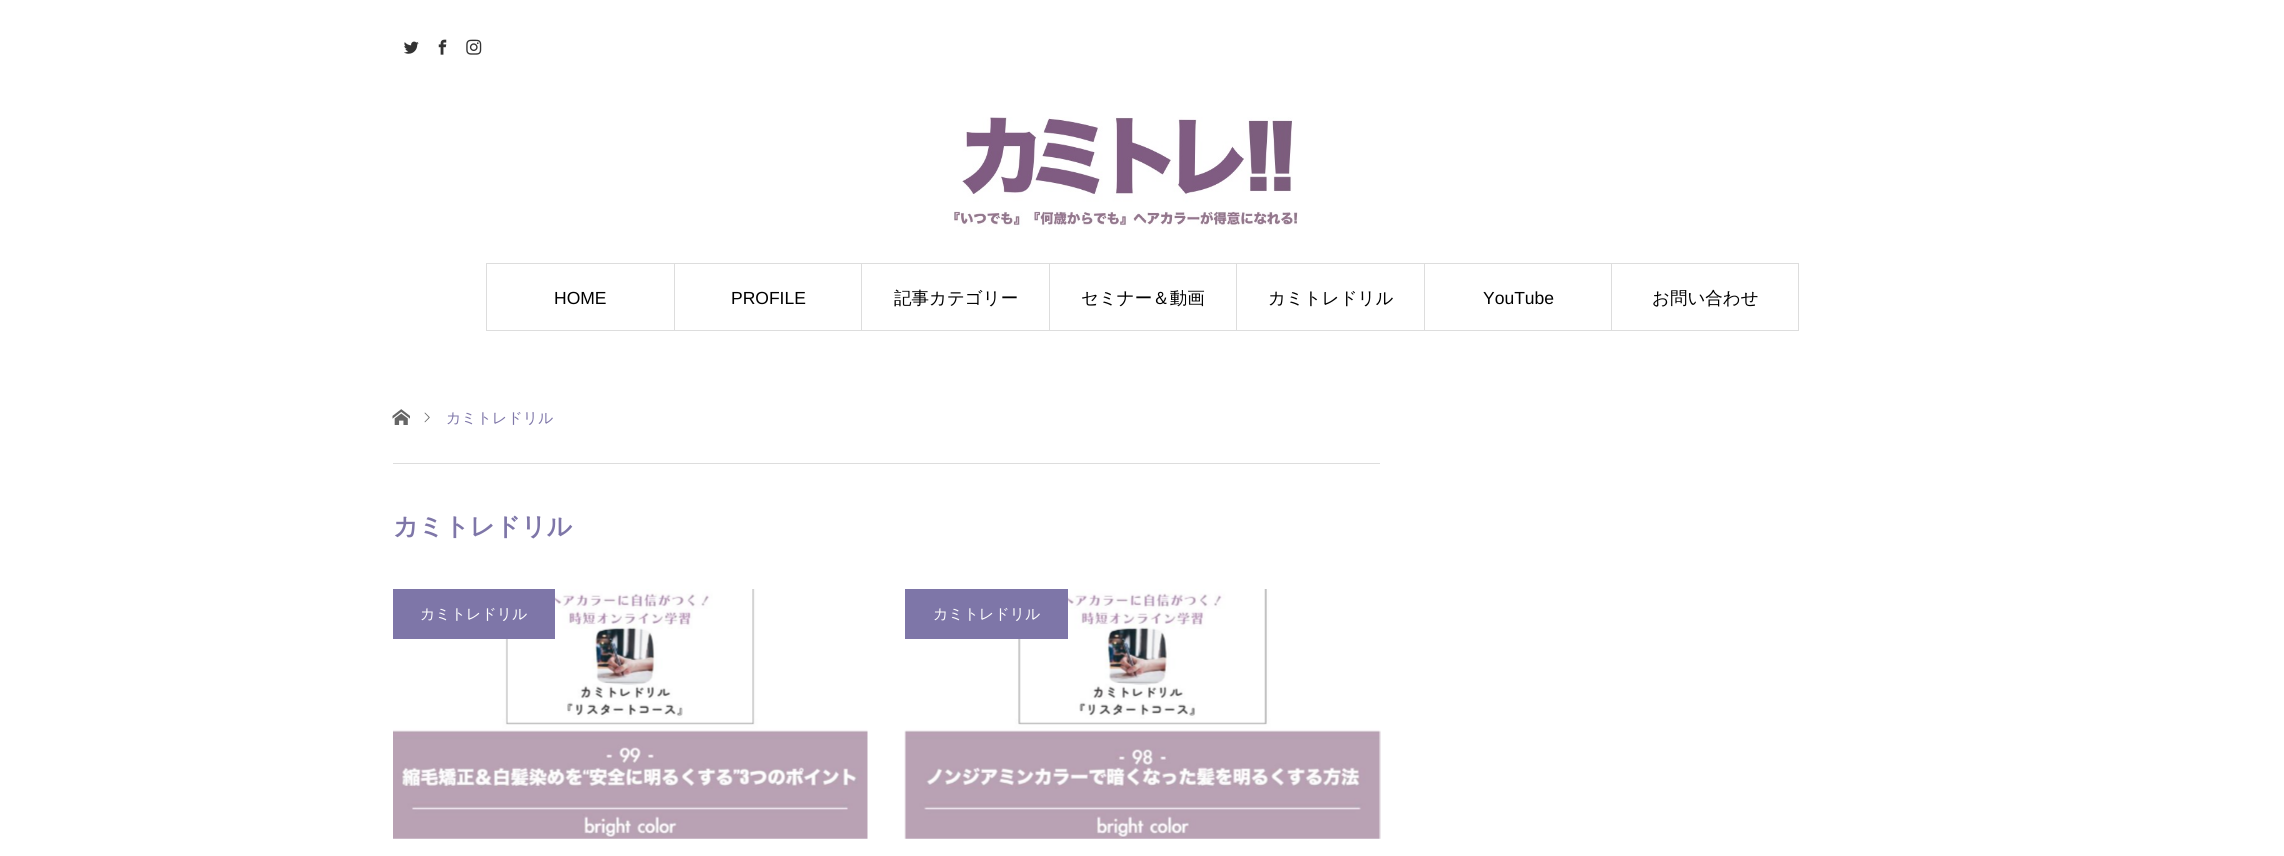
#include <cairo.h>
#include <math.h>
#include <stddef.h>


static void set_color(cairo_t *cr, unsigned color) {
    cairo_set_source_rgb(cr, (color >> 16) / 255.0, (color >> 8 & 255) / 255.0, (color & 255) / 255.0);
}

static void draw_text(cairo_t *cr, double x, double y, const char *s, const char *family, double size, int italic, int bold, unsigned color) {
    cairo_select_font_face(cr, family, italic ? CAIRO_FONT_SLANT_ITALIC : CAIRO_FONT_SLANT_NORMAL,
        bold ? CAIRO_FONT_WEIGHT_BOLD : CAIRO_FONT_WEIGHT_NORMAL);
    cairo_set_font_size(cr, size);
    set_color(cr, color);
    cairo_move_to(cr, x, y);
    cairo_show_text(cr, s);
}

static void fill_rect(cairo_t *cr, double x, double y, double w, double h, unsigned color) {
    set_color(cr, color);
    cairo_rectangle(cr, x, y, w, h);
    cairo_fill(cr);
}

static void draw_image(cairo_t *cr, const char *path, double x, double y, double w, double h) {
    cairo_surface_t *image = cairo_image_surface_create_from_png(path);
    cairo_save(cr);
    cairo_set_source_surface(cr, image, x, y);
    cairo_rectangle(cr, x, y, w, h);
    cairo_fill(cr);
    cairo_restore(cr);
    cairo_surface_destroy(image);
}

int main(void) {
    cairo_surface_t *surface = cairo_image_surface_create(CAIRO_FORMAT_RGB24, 2284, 856);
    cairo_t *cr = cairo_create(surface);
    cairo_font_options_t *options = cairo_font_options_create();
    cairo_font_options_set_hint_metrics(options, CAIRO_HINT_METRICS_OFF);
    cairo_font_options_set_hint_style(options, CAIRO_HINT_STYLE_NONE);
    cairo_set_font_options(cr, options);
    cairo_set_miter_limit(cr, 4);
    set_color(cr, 0xFFFFFF);
    cairo_paint(cr);
    draw_image(cr, "assets/img1.png", 404, 41, 15, 13);
    draw_image(cr, "assets/img2.png", 438, 39, 9, 16);
    draw_image(cr, "assets/img3.png", 466, 39, 16, 16);
    draw_image(cr, "assets/img4.png", 954, 117, 344, 110);
    fill_rect(cr, 486, 263, 1125, 1, 0xDDDDDD);
    fill_rect(cr, 486, 330, 1125, 1, 0xDDDDDD);
    fill_rect(cr, 486, 263, 1, 68, 0xDDDDDD);
    draw_text(cr, 554, 304, "HOME", "Liberation Sans", 17.5, 0, 0, 0x000000);
    fill_rect(cr, 674, 263, 1, 68, 0xDDDDDD);
    draw_text(cr, 731, 304, "PROFILE", "Liberation Sans", 17.5, 0, 0, 0x000000);
    fill_rect(cr, 861, 263, 1, 68, 0xDDDDDD);
    draw_text(cr, 894, 304, "記事カテゴリー", "WenQuanYi Zen Hei Medium", 17.5, 0, 0, 0x000000);
    fill_rect(cr, 1049, 263, 1, 68, 0xDDDDDD);
    draw_text(cr, 1081, 304, "セミナー＆動画", "WenQuanYi Zen Hei Medium", 17.5, 0, 0, 0x000000);
    fill_rect(cr, 1236, 263, 1, 68, 0xDDDDDD);
    draw_text(cr, 1268, 304, "カミトレドリル", "WenQuanYi Zen Hei Medium", 17.5, 0, 0, 0x000000);
    fill_rect(cr, 1424, 263, 1, 68, 0xDDDDDD);
    draw_text(cr, 1483, 304, "YouTube", "Liberation Sans", 17.5, 0, 0, 0x000000);
    cairo_rectangle(cr, 1611.5, 263.5, 187, 67);
    set_color(cr, 0xDDDDDD);
    cairo_set_line_width(cr, 1);
    cairo_stroke(cr);
    draw_text(cr, 1652, 304, "お問い合わせ", "WenQuanYi Zen Hei Medium", 17.5, 0, 0, 0x000000);
    draw_image(cr, "assets/img5.png", 392, 409, 18, 16);
    draw_image(cr, "assets/img6.png", 424, 412, 6, 11);
    draw_text(cr, 446, 423, "カミトレドリル", "WenQuanYi Zen Hei Medium", 15, 0, 0, 0x7E76A8);
    fill_rect(cr, 393, 463, 987, 1, 0xDDDDDD);
    draw_text(cr, 393, 535, "カミトレドリル", "WenQuanYi Zen Hei", 25, 0, 1, 0x7E76A8);
    draw_image(cr, "assets/img7.png", 393, 589, 475, 250);
    fill_rect(cr, 393, 589, 162, 50, 0x7E76A8);
    draw_text(cr, 420, 619, "カミトレドリル", "WenQuanYi Zen Hei Medium", 15, 0, 0, 0xFFFFFF);
    draw_image(cr, "assets/img8.png", 904, 589, 477, 250);
    fill_rect(cr, 905, 589, 163, 50, 0x7E76A8);
    draw_text(cr, 933, 619, "カミトレドリル", "WenQuanYi Zen Hei Medium", 15, 0, 0, 0xFFFFFF);
    cairo_surface_write_to_png(surface, "output.png");
    cairo_font_options_destroy(options);
    cairo_destroy(cr);
    cairo_surface_destroy(surface);
    return 0;
}
